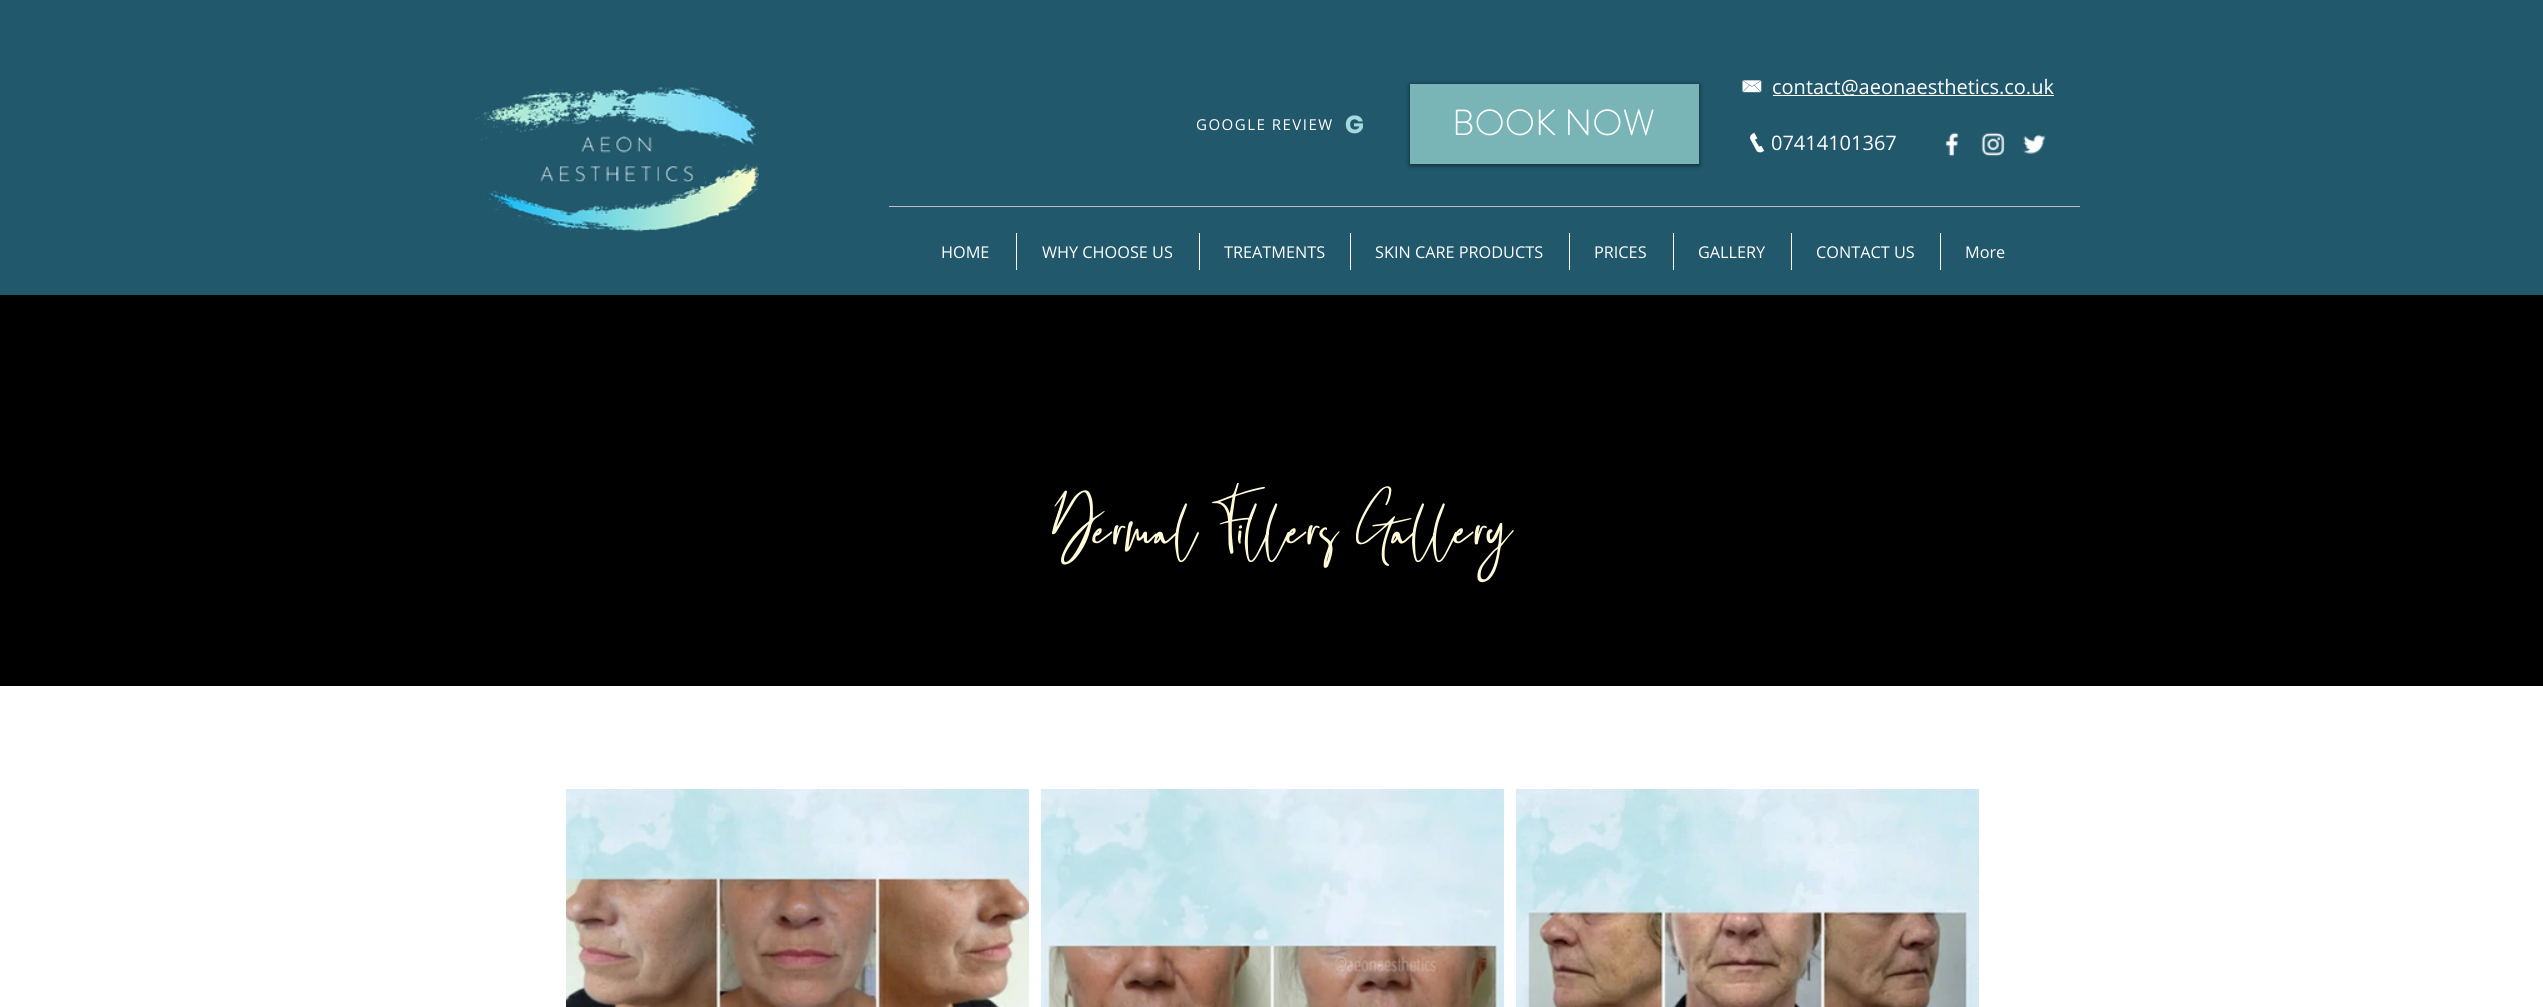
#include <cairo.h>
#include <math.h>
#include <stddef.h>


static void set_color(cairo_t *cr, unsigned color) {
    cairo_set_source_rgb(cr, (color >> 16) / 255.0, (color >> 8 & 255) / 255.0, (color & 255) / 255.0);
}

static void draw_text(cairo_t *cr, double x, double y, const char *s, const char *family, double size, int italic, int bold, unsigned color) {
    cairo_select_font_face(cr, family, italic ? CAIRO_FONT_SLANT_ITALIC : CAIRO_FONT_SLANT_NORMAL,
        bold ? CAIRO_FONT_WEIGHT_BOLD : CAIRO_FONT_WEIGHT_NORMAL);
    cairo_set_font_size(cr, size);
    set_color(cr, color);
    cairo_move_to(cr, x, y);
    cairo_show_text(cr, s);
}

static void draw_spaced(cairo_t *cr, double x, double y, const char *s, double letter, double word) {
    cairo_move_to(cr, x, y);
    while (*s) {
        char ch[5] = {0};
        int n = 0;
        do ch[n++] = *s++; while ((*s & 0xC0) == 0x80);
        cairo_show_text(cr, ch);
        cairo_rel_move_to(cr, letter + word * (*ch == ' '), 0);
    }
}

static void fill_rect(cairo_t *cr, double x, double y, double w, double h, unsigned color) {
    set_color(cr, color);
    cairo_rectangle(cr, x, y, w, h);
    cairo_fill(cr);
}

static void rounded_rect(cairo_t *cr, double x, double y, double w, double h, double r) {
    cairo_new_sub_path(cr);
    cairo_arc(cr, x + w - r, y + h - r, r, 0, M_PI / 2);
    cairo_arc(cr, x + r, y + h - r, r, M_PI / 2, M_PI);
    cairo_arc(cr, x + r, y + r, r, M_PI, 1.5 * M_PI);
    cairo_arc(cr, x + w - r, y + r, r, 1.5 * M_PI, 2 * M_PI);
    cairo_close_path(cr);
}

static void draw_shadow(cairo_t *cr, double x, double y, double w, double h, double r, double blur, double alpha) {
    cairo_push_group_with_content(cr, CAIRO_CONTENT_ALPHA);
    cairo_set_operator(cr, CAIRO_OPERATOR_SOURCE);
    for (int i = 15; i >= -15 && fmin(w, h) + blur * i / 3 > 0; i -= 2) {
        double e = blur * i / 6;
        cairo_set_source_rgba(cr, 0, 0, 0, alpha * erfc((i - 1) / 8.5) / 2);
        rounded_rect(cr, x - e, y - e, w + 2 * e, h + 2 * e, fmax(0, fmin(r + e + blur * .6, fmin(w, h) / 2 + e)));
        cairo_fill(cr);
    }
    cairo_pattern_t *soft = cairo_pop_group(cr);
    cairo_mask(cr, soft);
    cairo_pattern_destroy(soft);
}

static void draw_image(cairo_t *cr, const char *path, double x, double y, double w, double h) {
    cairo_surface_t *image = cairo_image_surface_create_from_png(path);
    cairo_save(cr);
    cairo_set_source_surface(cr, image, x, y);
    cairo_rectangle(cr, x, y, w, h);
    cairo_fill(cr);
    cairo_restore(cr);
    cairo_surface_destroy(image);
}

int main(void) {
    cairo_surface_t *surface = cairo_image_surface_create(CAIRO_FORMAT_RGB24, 2543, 1007);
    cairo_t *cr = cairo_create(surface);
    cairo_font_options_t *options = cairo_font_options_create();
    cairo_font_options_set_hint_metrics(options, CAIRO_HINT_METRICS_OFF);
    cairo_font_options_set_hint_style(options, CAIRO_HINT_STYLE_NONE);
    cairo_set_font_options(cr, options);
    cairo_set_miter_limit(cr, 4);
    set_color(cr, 0xFFFFFF);
    cairo_paint(cr);
    fill_rect(cr, 0, 0, 2543, 295, 0x21586C);
    draw_image(cr, "assets/img1.png", 475, 86, 285, 146);
    cairo_select_font_face(cr, "Open Sans", CAIRO_FONT_SLANT_NORMAL, CAIRO_FONT_WEIGHT_NORMAL);
    cairo_set_font_size(cr, 15);
    set_color(cr, 0xFFFFFF);
    draw_spaced(cr, 1196, 130, "GOOGLE REVIEW", 1.5, 0);
    draw_image(cr, "assets/img2.png", 1345, 115, 18, 19);
    set_color(cr, 0x000000);
    draw_shadow(cr, 1410, 85, 289, 80, 0, 2.5, 0.6);
    fill_rect(cr, 1410, 84, 289, 80, 0x79B5B6);
    draw_text(cr, 1452, 135, "BOOK NOW", "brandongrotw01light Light", 36.25, 0, 0, 0xFFFFFF);
    draw_image(cr, "assets/img3.png", 1742, 80, 20, 13);
    fill_rect(cr, 1773, 95, 281, 1, 0xFFFFFF);
    draw_text(cr, 1772, 94, "contact@aeonaesthetics.co.uk", "Open Sans", 20, 0, 0, 0xFFFFFF);
    draw_image(cr, "assets/img4.png", 1750, 132, 15, 21);
    draw_text(cr, 1771, 150, "07414101367", "Open Sans", 20, 0, 0, 0xFFFFFF);
    draw_image(cr, "assets/img5.png", 1945, 132, 14, 25);
    draw_image(cr, "assets/img6.png", 1981, 132, 24, 25);
    draw_image(cr, "assets/img7.png", 2023, 134, 23, 20);
    fill_rect(cr, 889, 206, 1191, 1, 0xBEBCC2);
    draw_text(cr, 941, 258, "HOME", "Open Sans", 16.25, 0, 0, 0xFFFFFF);
    fill_rect(cr, 1016, 233, 1, 37, 0xFFFFFF);
    draw_text(cr, 1042, 258, "WHY CHOOSE US", "Open Sans", 16.25, 0, 0, 0xFFFFFF);
    fill_rect(cr, 1199, 233, 1, 37, 0xFFFFFF);
    draw_text(cr, 1224, 258, "TREATMENTS", "Open Sans", 16.25, 0, 0, 0xFFFFFF);
    fill_rect(cr, 1350, 233, 1, 37, 0xFFFFFF);
    draw_text(cr, 1375, 258, "SKIN CARE PRODUCTS", "Open Sans", 16.25, 0, 0, 0xFFFFFF);
    fill_rect(cr, 1569, 233, 1, 37, 0xFFFFFF);
    draw_text(cr, 1594, 258, "PRICES", "Open Sans", 16.25, 0, 0, 0xFFFFFF);
    fill_rect(cr, 1673, 233, 1, 37, 0xFFFFFF);
    draw_text(cr, 1698, 258, "GALLERY", "Open Sans", 16.25, 0, 0, 0xFFFFFF);
    fill_rect(cr, 1791, 233, 1, 37, 0xFFFFFF);
    draw_text(cr, 1816, 258, "CONTACT US", "Open Sans", 16.25, 0, 0, 0xFFFFFF);
    fill_rect(cr, 1940, 233, 1, 37, 0xFFFFFF);
    draw_text(cr, 1965, 258, "More", "Open Sans", 16.25, 0, 0, 0xFFFFFF);
    fill_rect(cr, 0, 295, 2543, 391, 0x000000);
    draw_text(cr, 1049, 544, "Dermal Fillers Gallery", "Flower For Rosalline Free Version", 56.25, 0, 0, 0xFFFBD9);
    draw_image(cr, "assets/img8.png", 566, 789, 463, 218);
    draw_image(cr, "assets/img9.png", 1041, 789, 463, 218);
    draw_image(cr, "assets/img10.png", 1516, 789, 463, 218);
    cairo_surface_write_to_png(surface, "output.png");
    cairo_font_options_destroy(options);
    cairo_destroy(cr);
    cairo_surface_destroy(surface);
    return 0;
}
